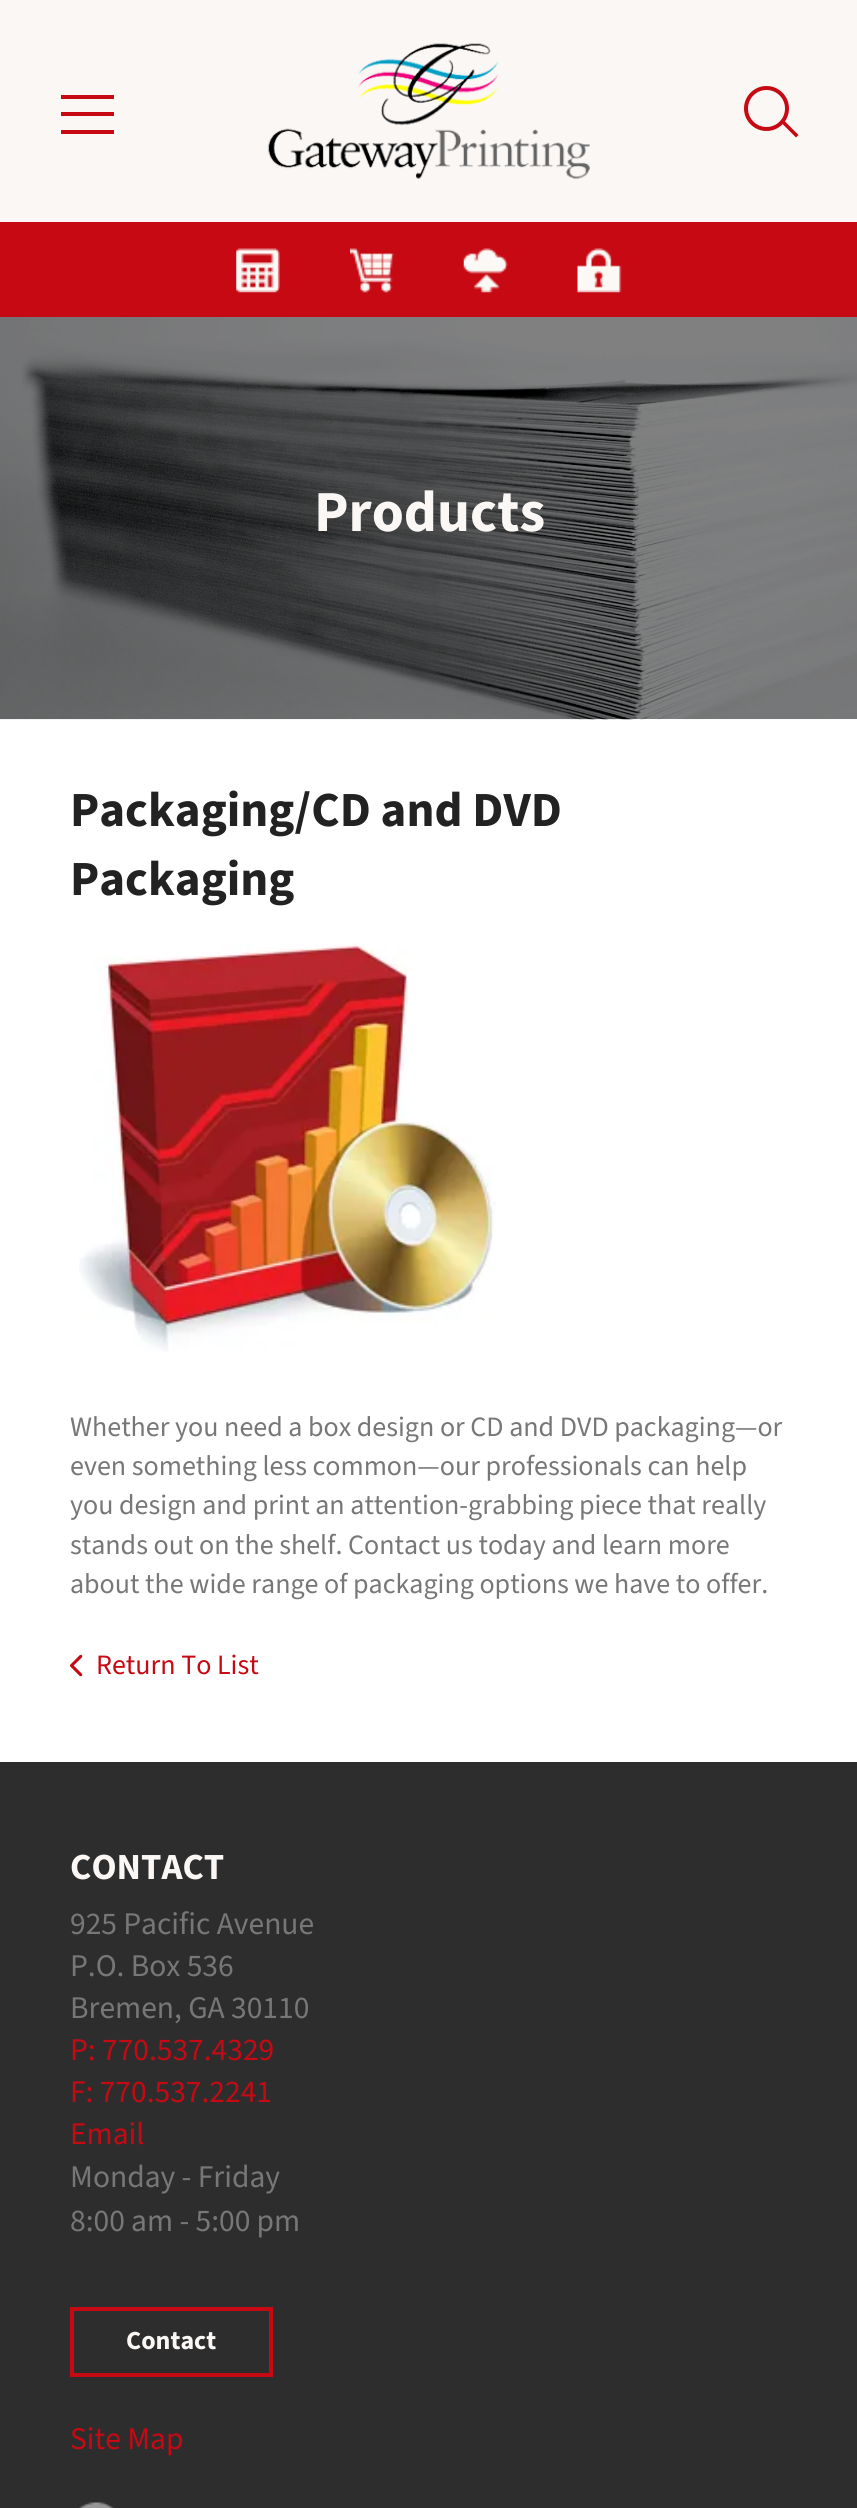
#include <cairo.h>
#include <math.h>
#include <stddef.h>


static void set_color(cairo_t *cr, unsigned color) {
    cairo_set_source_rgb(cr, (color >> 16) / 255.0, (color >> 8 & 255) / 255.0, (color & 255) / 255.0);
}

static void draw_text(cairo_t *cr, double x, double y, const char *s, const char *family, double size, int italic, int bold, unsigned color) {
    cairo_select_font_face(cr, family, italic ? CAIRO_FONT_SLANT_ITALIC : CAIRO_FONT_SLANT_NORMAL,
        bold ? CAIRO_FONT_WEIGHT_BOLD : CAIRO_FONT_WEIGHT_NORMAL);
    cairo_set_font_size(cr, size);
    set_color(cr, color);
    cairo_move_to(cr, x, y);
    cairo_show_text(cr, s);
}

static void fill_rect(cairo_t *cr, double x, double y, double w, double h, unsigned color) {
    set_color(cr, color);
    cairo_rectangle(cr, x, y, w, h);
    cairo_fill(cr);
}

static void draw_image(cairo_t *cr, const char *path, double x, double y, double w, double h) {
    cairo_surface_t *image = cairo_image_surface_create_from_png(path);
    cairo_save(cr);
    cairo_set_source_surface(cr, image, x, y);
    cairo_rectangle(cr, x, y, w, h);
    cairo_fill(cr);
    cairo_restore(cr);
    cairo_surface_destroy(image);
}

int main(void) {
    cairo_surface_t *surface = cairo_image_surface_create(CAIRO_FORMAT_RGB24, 857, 2508);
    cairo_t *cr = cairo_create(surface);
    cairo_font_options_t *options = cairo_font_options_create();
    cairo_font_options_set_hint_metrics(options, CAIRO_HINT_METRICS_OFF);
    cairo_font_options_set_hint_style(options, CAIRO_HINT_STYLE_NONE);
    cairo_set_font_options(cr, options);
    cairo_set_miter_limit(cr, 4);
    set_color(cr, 0xFFFFFF);
    cairo_paint(cr);
    fill_rect(cr, 0, 0, 857, 222, 0xFAF7F5);
    fill_rect(cr, 61, 95, 53, 4, 0xC60913);
    fill_rect(cr, 61, 112, 53, 4, 0xC60913);
    fill_rect(cr, 61, 130, 53, 4, 0xC60913);
    draw_image(cr, "assets/img1.png", 267, 43, 323, 136);
    cairo_new_path(cr);
    cairo_move_to(cr, 761.5, 98);
    cairo_line_to(cr, 798.5, 135);
    cairo_line_to(cr, 796, 137.5);
    cairo_line_to(cr, 759, 100.5);
    cairo_close_path(cr);
    cairo_fill(cr);
    set_color(cr, 0xFAF7F5);
    cairo_arc(cr, 766.5, 108.5, 20.5, 0, 2 * M_PI);
    cairo_fill_preserve(cr);
    set_color(cr, 0xC60913);
    cairo_set_line_width(cr, 4);
    cairo_stroke(cr);
    fill_rect(cr, 0, 222, 857, 95, 0xC60913);
    draw_image(cr, "assets/img2.png", 236, 248, 44, 45);
    draw_image(cr, "assets/img3.png", 350, 248, 44, 45);
    draw_image(cr, "assets/img4.png", 463, 248, 45, 45);
    draw_image(cr, "assets/img5.png", 577, 248, 45, 45);
    draw_image(cr, "assets/img6.png", 0, 317, 857, 403);
    draw_text(cr, 314, 531, "Products", "Source Sans 3", 58, 0, 1, 0xFAF7F5);
    draw_text(cr, 70, 826, "Packaging/CD and DVD", "Source Sans 3", 49, 0, 1, 0x222222);
    draw_text(cr, 70, 895, "Packaging", "Source Sans 3", 49, 0, 1, 0x222222);
    draw_image(cr, "assets/img7.png", 79, 943, 417, 409);
    draw_text(cr, 70, 1436, "Whether you need a box design or CD and DVD packaging—or", "Source Sans 3", 28, 0, 0, 0x787777);
    draw_text(cr, 70, 1475, "even something less common—our professionals can help", "Source Sans 3", 28, 0, 0, 0x787777);
    draw_text(cr, 70, 1514, "you design and print an attention-grabbing piece that really", "Source Sans 3", 28, 0, 0, 0x787777);
    draw_text(cr, 70, 1554, "stands out on the shelf. Contact us today and learn more", "Source Sans 3", 28, 0, 0, 0x787777);
    draw_text(cr, 70, 1593, "about the wide range of packaging options we have to offer.", "Source Sans 3", 28, 0, 0, 0x787777);
    draw_image(cr, "assets/img8.png", 70, 1654, 13, 23);
    draw_text(cr, 96, 1674, "Return To List", "Source Sans 3", 28, 0, 0, 0xC60913);
    fill_rect(cr, 0, 1762, 857, 746, 0x2D2D2D);
    draw_text(cr, 70, 1879, "CONTACT", "Source Sans 3", 36.75, 0, 1, 0xFAF7F5);
    draw_text(cr, 70, 1934, "925 Pacific Avenue", "Source Sans 3", 31.5, 0, 0, 0x787777);
    draw_text(cr, 70, 1976, "P.O. Box 536", "Source Sans 3", 31.5, 0, 0, 0x787777);
    draw_text(cr, 70, 2018, "Bremen, GA 30110", "Source Sans 3", 31.5, 0, 0, 0x787777);
    draw_text(cr, 70, 2060, "P: 770.537.4329", "Source Sans 3", 31.5, 0, 0, 0xC60913);
    draw_text(cr, 70, 2102, "F: 770.537.2241", "Source Sans 3", 31.5, 0, 0, 0xC60913);
    draw_text(cr, 70, 2144, "Email", "Source Sans 3", 31.5, 0, 0, 0xC60913);
    draw_text(cr, 70, 2187, "Monday - Friday", "Source Sans 3", 31.5, 0, 0, 0x787777);
    draw_text(cr, 70, 2231, "8:00 am - 5:00 pm", "Source Sans 3", 31.5, 0, 0, 0x787777);
    cairo_rectangle(cr, 72, 2309, 199, 66);
    set_color(cr, 0xC60913);
    cairo_stroke(cr);
    draw_text(cr, 126, 2349, "Contact", "Source Sans 3", 26, 0, 1, 0xFAF7F5);
    draw_text(cr, 70, 2449, "Site Map", "Source Sans 3", 31.5, 0, 0, 0xC60913);
    draw_image(cr, "assets/img9.png", 78, 2502, 36, 6);
    cairo_surface_write_to_png(surface, "output.png");
    cairo_font_options_destroy(options);
    cairo_destroy(cr);
    cairo_surface_destroy(surface);
    return 0;
}
